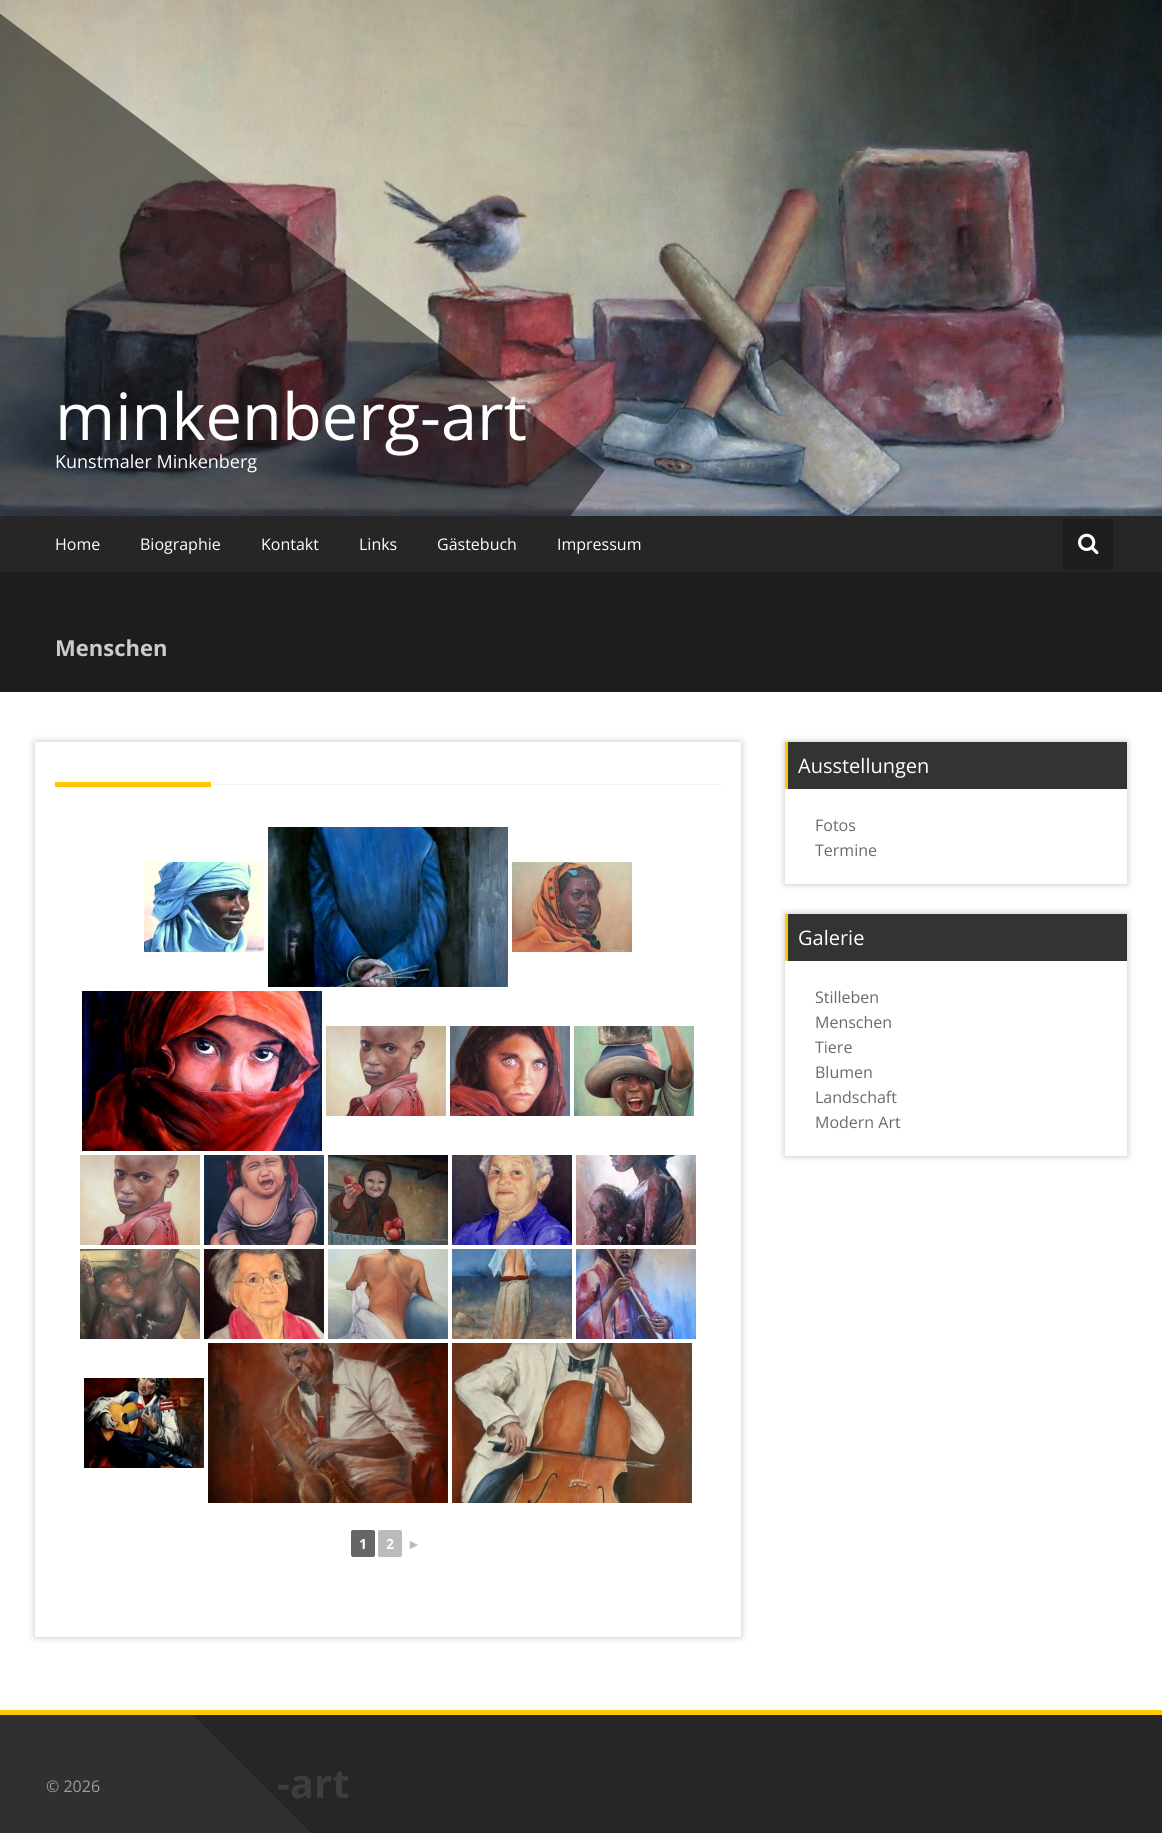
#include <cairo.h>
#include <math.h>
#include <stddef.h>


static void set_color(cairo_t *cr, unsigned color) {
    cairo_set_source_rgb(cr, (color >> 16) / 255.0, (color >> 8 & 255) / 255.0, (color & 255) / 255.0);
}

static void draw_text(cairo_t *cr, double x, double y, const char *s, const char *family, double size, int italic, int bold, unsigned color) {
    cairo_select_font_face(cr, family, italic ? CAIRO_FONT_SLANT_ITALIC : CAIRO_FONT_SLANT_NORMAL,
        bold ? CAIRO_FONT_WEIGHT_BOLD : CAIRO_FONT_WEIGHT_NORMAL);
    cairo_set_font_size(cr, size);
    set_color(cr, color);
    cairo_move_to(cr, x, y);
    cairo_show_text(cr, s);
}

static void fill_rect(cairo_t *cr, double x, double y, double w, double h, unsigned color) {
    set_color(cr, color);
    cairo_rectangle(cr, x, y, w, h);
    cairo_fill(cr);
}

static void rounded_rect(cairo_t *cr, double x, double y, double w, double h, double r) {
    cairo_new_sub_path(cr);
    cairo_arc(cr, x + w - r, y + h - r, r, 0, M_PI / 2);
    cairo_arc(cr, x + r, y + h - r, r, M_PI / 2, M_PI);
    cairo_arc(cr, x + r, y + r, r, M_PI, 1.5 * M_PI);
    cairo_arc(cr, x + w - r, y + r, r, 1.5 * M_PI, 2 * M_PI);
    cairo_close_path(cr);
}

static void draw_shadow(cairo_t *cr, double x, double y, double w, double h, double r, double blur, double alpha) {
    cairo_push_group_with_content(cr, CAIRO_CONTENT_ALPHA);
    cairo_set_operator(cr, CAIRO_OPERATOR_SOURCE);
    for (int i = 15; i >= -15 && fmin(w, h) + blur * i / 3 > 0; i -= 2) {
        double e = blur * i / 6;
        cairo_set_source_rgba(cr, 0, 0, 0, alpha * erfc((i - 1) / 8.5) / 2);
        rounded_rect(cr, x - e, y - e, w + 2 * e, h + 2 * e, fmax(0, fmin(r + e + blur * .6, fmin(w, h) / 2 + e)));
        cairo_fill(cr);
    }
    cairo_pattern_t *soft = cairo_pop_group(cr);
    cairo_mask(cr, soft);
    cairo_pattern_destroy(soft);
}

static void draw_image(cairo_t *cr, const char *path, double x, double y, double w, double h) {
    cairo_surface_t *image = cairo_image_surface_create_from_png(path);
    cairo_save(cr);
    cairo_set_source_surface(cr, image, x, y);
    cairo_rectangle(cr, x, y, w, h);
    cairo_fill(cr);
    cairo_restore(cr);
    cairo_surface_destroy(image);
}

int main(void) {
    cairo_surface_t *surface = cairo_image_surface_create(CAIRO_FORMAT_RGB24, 1162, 1833);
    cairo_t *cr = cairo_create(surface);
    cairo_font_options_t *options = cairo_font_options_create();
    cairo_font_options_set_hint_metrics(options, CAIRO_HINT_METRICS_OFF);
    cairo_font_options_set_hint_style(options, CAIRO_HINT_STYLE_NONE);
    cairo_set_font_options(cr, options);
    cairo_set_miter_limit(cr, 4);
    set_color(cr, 0xFFFFFF);
    cairo_paint(cr);
    draw_image(cr, "assets/img1.png", 0, 0, 1162, 516);
    cairo_save(cr);
    cairo_rectangle(cr, 0, 0, 1162, 516);
    cairo_clip(cr);
    cairo_set_source_rgba(cr, 0, 0, 0, 0.5);
    cairo_new_path(cr);
    cairo_move_to(cr, -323, -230);
    cairo_line_to(cr, 605, 470);
    cairo_line_to(cr, 3, 1268);
    cairo_line_to(cr, -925, 569);
    cairo_close_path(cr);
    cairo_fill(cr);
    cairo_restore(cr);
    draw_text(cr, 55, 440, "minkenberg-art", "Open Sans", 65, 0, 0, 0xFFFFFF);
    draw_text(cr, 55, 468, "Kunstmaler Minkenberg", "Open Sans", 18, 0, 0, 0xFFFFFF);
    fill_rect(cr, 0, 516, 1162, 56, 0x262626);
    draw_text(cr, 55, 550, "Home", "Open Sans", 16, 0, 0, 0xFFFFFF);
    draw_text(cr, 140, 550, "Biographie", "Open Sans", 16, 0, 0, 0xFFFFFF);
    draw_text(cr, 261, 550, "Kontakt", "Open Sans", 16, 0, 0, 0xFFFFFF);
    draw_text(cr, 359, 550, "Links", "Open Sans", 16, 0, 0, 0xFFFFFF);
    draw_text(cr, 437, 550, "Gästebuch", "Open Sans", 16, 0, 0, 0xFFFFFF);
    draw_text(cr, 557, 550, "Impressum", "Open Sans", 16, 0, 0, 0xFFFFFF);
    fill_rect(cr, 1063, 519, 50, 50, 0x1D1D1D);
    draw_image(cr, "assets/img2.png", 1078, 533, 21, 22);
    fill_rect(cr, 0, 572, 1162, 120, 0x1D1D1D);
    draw_text(cr, 55, 656, "Menschen", "Open Sans", 22, 0, 1, 0xCCCCCC);
    cairo_save(cr);
    cairo_set_fill_rule(cr, CAIRO_FILL_RULE_EVEN_ODD);
    cairo_new_path(cr);
    cairo_move_to(cr, 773, 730);
    cairo_line_to(cr, 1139, 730);
    cairo_line_to(cr, 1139, 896);
    cairo_line_to(cr, 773, 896);
    cairo_close_path(cr);
    cairo_move_to(cr, 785, 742);
    cairo_line_to(cr, 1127, 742);
    cairo_line_to(cr, 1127, 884);
    cairo_line_to(cr, 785, 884);
    cairo_close_path(cr);
    cairo_clip(cr);
    set_color(cr, 0xC2C2C2);
    draw_shadow(cr, 785, 742, 342, 142, 0, 3.5, 1);
    cairo_restore(cr);
    fill_rect(cr, 788, 742, 339, 47, 0x333333);
    fill_rect(cr, 785, 742, 3, 47, 0xFFC800);
    draw_text(cr, 798, 773, "Ausstellungen", "Open Sans", 20, 0, 0, 0xFFFFFF);
    draw_text(cr, 815, 831, "Fotos", "Open Sans", 16, 0, 0, 0x6A6A6A);
    draw_text(cr, 815, 856, "Termine", "Open Sans", 16, 0, 0, 0x6A6A6A);
    cairo_save(cr);
    cairo_set_fill_rule(cr, CAIRO_FILL_RULE_EVEN_ODD);
    cairo_new_path(cr);
    cairo_move_to(cr, 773, 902);
    cairo_line_to(cr, 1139, 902);
    cairo_line_to(cr, 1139, 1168);
    cairo_line_to(cr, 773, 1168);
    cairo_close_path(cr);
    cairo_move_to(cr, 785, 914);
    cairo_line_to(cr, 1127, 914);
    cairo_line_to(cr, 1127, 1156);
    cairo_line_to(cr, 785, 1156);
    cairo_close_path(cr);
    cairo_clip(cr);
    set_color(cr, 0xC2C2C2);
    draw_shadow(cr, 785, 914, 342, 242, 0, 3.5, 1);
    cairo_restore(cr);
    fill_rect(cr, 788, 914, 339, 47, 0x333333);
    fill_rect(cr, 785, 914, 3, 47, 0xFFC800);
    draw_text(cr, 798, 945, "Galerie", "Open Sans", 20, 0, 0, 0xFFFFFF);
    draw_text(cr, 815, 1003, "Stilleben", "Open Sans", 16, 0, 0, 0x6A6A6A);
    draw_text(cr, 815, 1028, "Menschen", "Open Sans", 16, 0, 0, 0x6A6A6A);
    draw_text(cr, 815, 1053, "Tiere", "Open Sans", 16, 0, 0, 0x6A6A6A);
    draw_text(cr, 815, 1078, "Blumen", "Open Sans", 16, 0, 0, 0x6A6A6A);
    draw_text(cr, 815, 1103, "Landschaft", "Open Sans", 16, 0, 0, 0x6A6A6A);
    draw_text(cr, 815, 1128, "Modern Art", "Open Sans", 16, 0, 0, 0x6A6A6A);
    cairo_save(cr);
    cairo_set_fill_rule(cr, CAIRO_FILL_RULE_EVEN_ODD);
    cairo_new_path(cr);
    cairo_move_to(cr, 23, 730);
    cairo_line_to(cr, 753, 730);
    cairo_line_to(cr, 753, 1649);
    cairo_line_to(cr, 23, 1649);
    cairo_close_path(cr);
    cairo_move_to(cr, 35, 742);
    cairo_line_to(cr, 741, 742);
    cairo_line_to(cr, 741, 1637);
    cairo_line_to(cr, 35, 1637);
    cairo_close_path(cr);
    cairo_clip(cr);
    set_color(cr, 0xC2C2C2);
    draw_shadow(cr, 35, 742, 706, 895, 0, 3.5, 1);
    cairo_restore(cr);
    fill_rect(cr, 55, 782, 156, 5, 0xFFC800);
    fill_rect(cr, 211, 784, 510, 1, 0xF4F4F4);
    draw_image(cr, "assets/img3.png", 144, 862, 120, 90);
    draw_image(cr, "assets/img4.png", 268, 827, 240, 160);
    draw_image(cr, "assets/img5.png", 512, 862, 120, 90);
    draw_image(cr, "assets/img6.png", 82, 991, 240, 160);
    draw_image(cr, "assets/img7.png", 326, 1026, 120, 90);
    draw_image(cr, "assets/img8.png", 450, 1026, 120, 90);
    draw_image(cr, "assets/img9.png", 574, 1026, 120, 90);
    draw_image(cr, "assets/img7.png", 80, 1155, 120, 90);
    draw_image(cr, "assets/img10.png", 204, 1155, 120, 90);
    draw_image(cr, "assets/img11.png", 328, 1155, 120, 90);
    draw_image(cr, "assets/img12.png", 452, 1155, 120, 90);
    draw_image(cr, "assets/img13.png", 576, 1155, 120, 90);
    draw_image(cr, "assets/img14.png", 80, 1249, 120, 90);
    draw_image(cr, "assets/img15.png", 204, 1249, 120, 90);
    draw_image(cr, "assets/img16.png", 328, 1249, 120, 90);
    draw_image(cr, "assets/img17.png", 452, 1249, 120, 90);
    draw_image(cr, "assets/img18.png", 576, 1249, 120, 90);
    draw_image(cr, "assets/img19.png", 84, 1378, 120, 90);
    draw_image(cr, "assets/img20.png", 208, 1343, 240, 160);
    draw_image(cr, "assets/img21.png", 452, 1343, 240, 160);
    set_color(cr, 0x666666);
    rounded_rect(cr, 351, 1530, 24, 27, 2);
    cairo_fill(cr);
    draw_text(cr, 359, 1549, "1", "Open Sans", 14, 0, 1, 0xFFFFFF);
    set_color(cr, 0xBBBBBB);
    rounded_rect(cr, 378, 1530, 24, 27, 2);
    cairo_fill(cr);
    draw_text(cr, 386, 1549, "2", "Open Sans", 14, 0, 1, 0xFFFFFF);
    draw_text(cr, 407, 1549, "►", "Liberation Sans", 14, 0, 1, 0xBBBBBB);
    fill_rect(cr, 193, 1715, 969, 118, 0x262626);
    fill_rect(cr, 0, 1710, 1162, 5, 0xFFC800);
    cairo_save(cr);
    cairo_rectangle(cr, 0, 1715, 1162, 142);
    cairo_clip(cr);
    set_color(cr, 0x303030);
    cairo_new_path(cr);
    cairo_move_to(cr, -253, 1269);
    cairo_line_to(cr, 569, 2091);
    cairo_line_to(cr, 215, 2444);
    cairo_line_to(cr, -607, 1623);
    cairo_close_path(cr);
    cairo_fill(cr);
    cairo_restore(cr);
    draw_text(cr, 46, 1792, "© 2026", "Open Sans", 16, 0, 0, 0x9C9C9C);
    draw_text(cr, 277, 1798, "-art", "Open Sans", 40, 0, 1, 0x3D3D3D);
    cairo_surface_write_to_png(surface, "output.png");
    cairo_font_options_destroy(options);
    cairo_destroy(cr);
    cairo_surface_destroy(surface);
    return 0;
}
